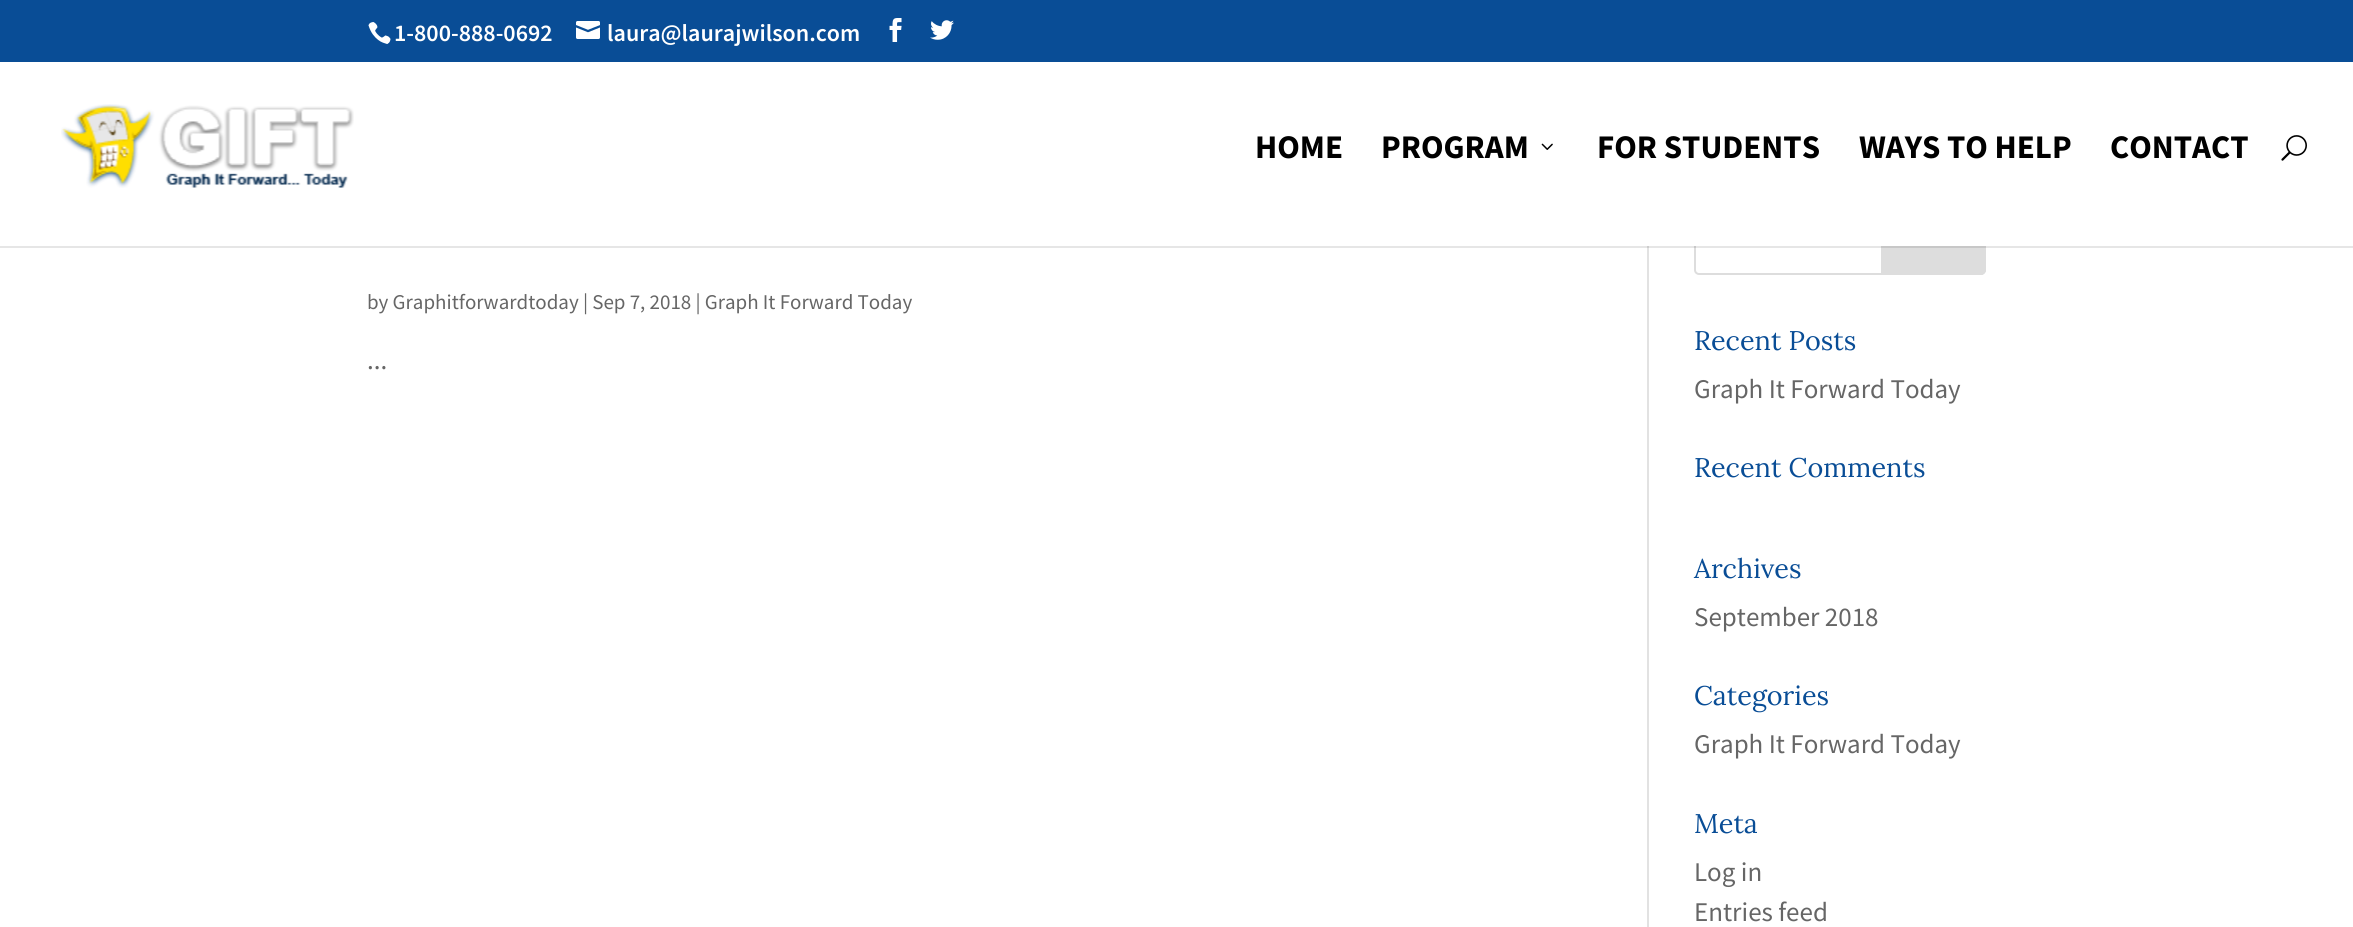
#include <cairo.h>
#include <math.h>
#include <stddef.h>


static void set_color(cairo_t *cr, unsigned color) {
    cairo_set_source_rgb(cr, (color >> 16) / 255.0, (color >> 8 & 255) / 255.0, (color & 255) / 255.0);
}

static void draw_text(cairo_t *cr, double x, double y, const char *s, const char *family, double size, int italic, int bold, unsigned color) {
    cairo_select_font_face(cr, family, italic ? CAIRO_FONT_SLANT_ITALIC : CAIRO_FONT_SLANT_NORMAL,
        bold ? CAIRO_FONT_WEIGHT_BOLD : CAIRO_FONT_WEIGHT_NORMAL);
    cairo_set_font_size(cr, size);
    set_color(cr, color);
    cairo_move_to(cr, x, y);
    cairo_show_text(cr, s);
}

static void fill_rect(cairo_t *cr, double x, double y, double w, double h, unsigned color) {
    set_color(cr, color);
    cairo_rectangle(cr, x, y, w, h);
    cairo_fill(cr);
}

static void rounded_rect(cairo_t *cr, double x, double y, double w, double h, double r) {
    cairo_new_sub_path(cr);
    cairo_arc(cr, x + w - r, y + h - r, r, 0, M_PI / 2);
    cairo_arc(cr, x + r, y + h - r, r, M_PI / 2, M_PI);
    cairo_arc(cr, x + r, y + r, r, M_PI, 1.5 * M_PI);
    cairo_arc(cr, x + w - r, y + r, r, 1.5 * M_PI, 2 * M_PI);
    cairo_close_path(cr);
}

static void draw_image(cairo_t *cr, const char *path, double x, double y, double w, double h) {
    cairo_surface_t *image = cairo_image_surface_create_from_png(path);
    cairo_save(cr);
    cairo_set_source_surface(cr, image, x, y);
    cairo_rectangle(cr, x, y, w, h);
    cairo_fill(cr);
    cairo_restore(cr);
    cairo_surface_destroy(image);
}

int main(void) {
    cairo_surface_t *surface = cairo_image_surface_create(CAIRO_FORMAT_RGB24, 2353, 927);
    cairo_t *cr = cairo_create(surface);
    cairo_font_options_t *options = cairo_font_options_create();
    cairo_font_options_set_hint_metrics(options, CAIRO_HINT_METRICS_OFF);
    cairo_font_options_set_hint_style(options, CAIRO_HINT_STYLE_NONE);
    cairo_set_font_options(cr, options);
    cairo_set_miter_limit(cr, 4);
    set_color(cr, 0xFFFFFF);
    cairo_paint(cr);
    fill_rect(cr, 0, 0, 2353, 62, 0x094D96);
    draw_image(cr, "assets/img1.png", 368, 22, 23, 22);
    draw_text(cr, 394, 41, "1-800-888-0692", "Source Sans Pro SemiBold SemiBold", 24, 0, 0, 0xFFFFFF);
    draw_image(cr, "assets/img2.png", 576, 21, 24, 18);
    draw_text(cr, 607, 41, "laura@laurajwilson.com", "Source Sans Pro SemiBold SemiBold", 24, 0, 0, 0xFFFFFF);
    draw_image(cr, "assets/img3.png", 889, 18, 13, 24);
    draw_image(cr, "assets/img4.png", 930, 20, 24, 20);
    fill_rect(cr, 1647, 246, 2, 681, 0xE2E2E2);
    rounded_rect(cr, 1695, 216, 290, 58, 4);
    set_color(cr, 0xDDDDDD);
    cairo_stroke(cr);
    cairo_new_path(cr);
    cairo_move_to(cr, 1882, 216);
    cairo_line_to(cr, 1981, 216);
    cairo_curve_to(cr, 1983, 216, 1985, 218, 1985, 220);
    cairo_line_to(cr, 1985, 270);
    cairo_curve_to(cr, 1985, 272, 1983, 274, 1981, 274);
    cairo_line_to(cr, 1882, 274);
    cairo_close_path(cr);
    cairo_fill_preserve(cr);
    cairo_stroke(cr);
    cairo_set_source_rgba(cr, 0, 0, 0, 0.1);
    cairo_new_path(cr);
    cairo_move_to(cr, 0, 246);
    cairo_line_to(cr, 0, 248);
    cairo_line_to(cr, 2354, 248);
    cairo_line_to(cr, 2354, 47);
    cairo_line_to(cr, 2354, 246);
    cairo_close_path(cr);
    cairo_fill(cr);
    fill_rect(cr, 1694, 215, 292, 31, 0xFFFFFF);
    draw_image(cr, "assets/img5.png", 61, 104, 293, 84);
    draw_text(cr, 1255, 158, "HOME", "Source Sans Pro", 33, 0, 1, 0x000000);
    draw_text(cr, 1381, 158, "PROGRAM", "Source Sans Pro", 33, 0, 1, 0x000000);
    draw_image(cr, "assets/img6.png", 1541, 143, 12, 7);
    draw_text(cr, 1597, 158, "FOR STUDENTS", "Source Sans Pro", 33, 0, 1, 0x000000);
    draw_text(cr, 1859, 158, "WAYS TO HELP", "Source Sans Pro", 33, 0, 1, 0x000000);
    draw_text(cr, 2110, 158, "CONTACT", "Source Sans Pro", 33, 0, 1, 0x000000);
    draw_image(cr, "assets/img7.png", 2281, 135, 26, 26);
    draw_text(cr, 367, 309, "by Graphitforwardtoday | Sep 7, 2018 | Graph It Forward Today", "Source Sans Pro", 21, 0, 0, 0x666666);
    draw_text(cr, 367, 369, "...", "Source Sans Pro", 27, 0, 0, 0x666666);
    draw_text(cr, 1694, 350, "Recent Posts", "Lora", 27, 0, 0, 0x094D96);
    draw_text(cr, 1694, 398, "Graph It Forward Today", "Source Sans Pro", 27, 0, 0, 0x666666);
    draw_text(cr, 1694, 477, "Recent Comments", "Lora", 27, 0, 0, 0x094D96);
    draw_text(cr, 1694, 578, "Archives", "Lora", 27, 0, 0, 0x094D96);
    draw_text(cr, 1694, 626, "September 2018", "Source Sans Pro", 27, 0, 0, 0x666666);
    draw_text(cr, 1694, 705, "Categories", "Lora", 27, 0, 0, 0x094D96);
    draw_text(cr, 1694, 753, "Graph It Forward Today", "Source Sans Pro", 27, 0, 0, 0x666666);
    draw_text(cr, 1694, 833, "Meta", "Lora", 27, 0, 0, 0x094D96);
    draw_text(cr, 1694, 881, "Log in", "Source Sans Pro", 27, 0, 0, 0x666666);
    draw_text(cr, 1694, 921, "Entries feed", "Source Sans Pro", 27, 0, 0, 0x666666);
    cairo_surface_write_to_png(surface, "output.png");
    cairo_font_options_destroy(options);
    cairo_destroy(cr);
    cairo_surface_destroy(surface);
    return 0;
}
